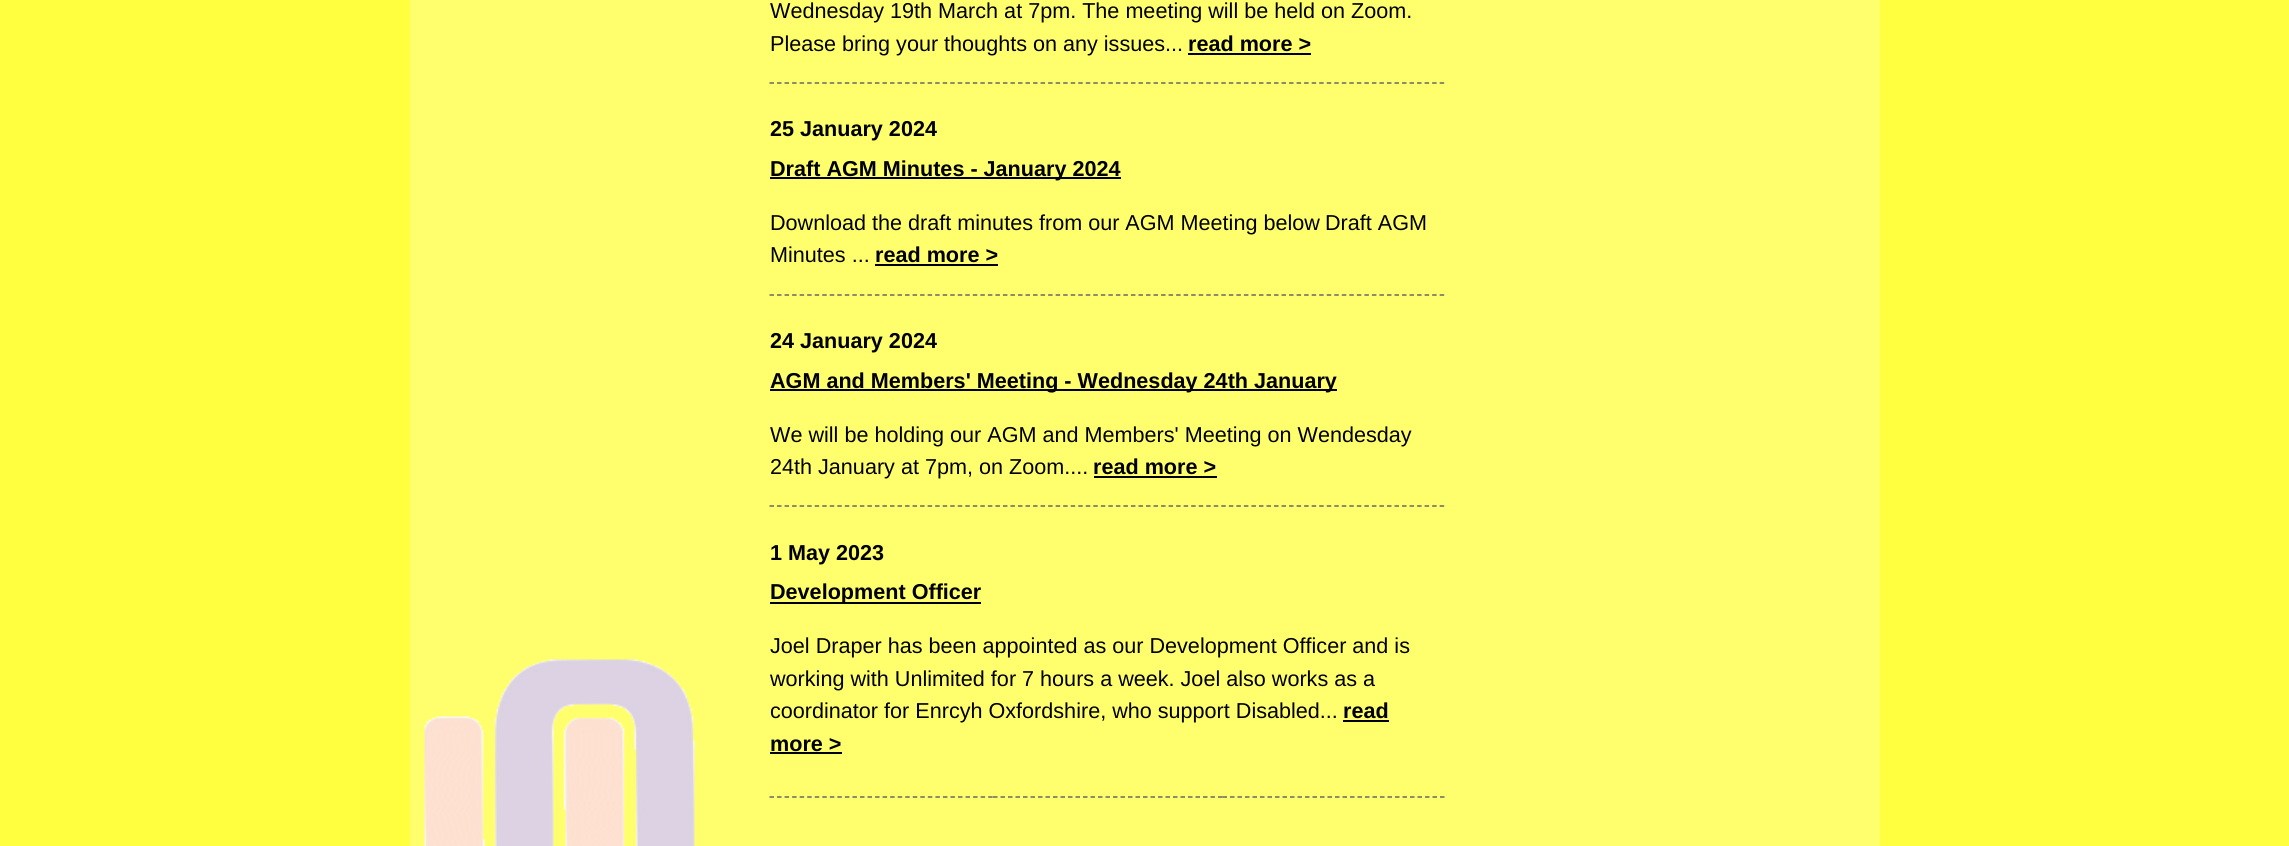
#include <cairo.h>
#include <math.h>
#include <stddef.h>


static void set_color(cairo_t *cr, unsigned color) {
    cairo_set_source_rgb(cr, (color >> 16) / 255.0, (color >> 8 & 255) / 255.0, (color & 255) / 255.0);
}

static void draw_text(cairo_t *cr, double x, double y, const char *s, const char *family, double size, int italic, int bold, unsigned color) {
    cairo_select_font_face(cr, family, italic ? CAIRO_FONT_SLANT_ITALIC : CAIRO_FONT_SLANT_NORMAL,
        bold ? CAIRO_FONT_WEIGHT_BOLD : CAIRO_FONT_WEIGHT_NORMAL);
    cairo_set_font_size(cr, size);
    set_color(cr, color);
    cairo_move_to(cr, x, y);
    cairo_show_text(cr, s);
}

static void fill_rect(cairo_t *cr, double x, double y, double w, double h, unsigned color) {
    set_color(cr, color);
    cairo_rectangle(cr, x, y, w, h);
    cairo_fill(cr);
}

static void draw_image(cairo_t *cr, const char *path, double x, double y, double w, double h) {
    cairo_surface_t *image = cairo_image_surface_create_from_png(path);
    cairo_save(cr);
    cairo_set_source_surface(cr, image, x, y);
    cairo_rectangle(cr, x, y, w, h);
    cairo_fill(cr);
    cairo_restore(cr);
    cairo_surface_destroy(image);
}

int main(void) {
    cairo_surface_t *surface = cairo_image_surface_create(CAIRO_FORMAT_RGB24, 2289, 846);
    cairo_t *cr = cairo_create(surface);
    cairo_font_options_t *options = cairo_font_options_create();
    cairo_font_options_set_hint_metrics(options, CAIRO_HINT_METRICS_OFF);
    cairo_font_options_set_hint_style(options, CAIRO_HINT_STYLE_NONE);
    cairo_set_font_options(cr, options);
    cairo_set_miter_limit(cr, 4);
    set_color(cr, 0xFFFF40);
    cairo_paint(cr);
    fill_rect(cr, 410, 0, 1470, 846, 0xFFFF6D);
    draw_image(cr, "assets/img1.png", 424, 659, 271, 187);
    draw_text(cr, 770, 18, "Wednesday 19th March at 7pm. The meeting will be held on Zoom.", "Liberation Sans", 21.6, 0, 0, 0x000000);
    draw_text(cr, 770, 51, "Please bring your thoughts on any issues...", "Liberation Sans", 21.6, 0, 0, 0x000000);
    draw_text(cr, 1188, 51, "read more >", "Liberation Sans", 21.6, 0, 1, 0x000000);
    fill_rect(cr, 1188, 53, 123, 2, 0x000000);
    cairo_new_path(cr);
    cairo_move_to(cr, 769.5, 83);
    cairo_line_to(cr, 1444.5, 83);
    set_color(cr, 0x666666);
    cairo_set_line_width(cr, 1.5);
    cairo_set_dash(cr, (double[]){4.5, 3.03}, 2, 0);
    cairo_stroke(cr);
    draw_text(cr, 770, 136, "25 January 2024", "Liberation Sans", 21.6, 0, 1, 0x000000);
    fill_rect(cr, 770, 177, 351, 2, 0x000000);
    draw_text(cr, 770, 176, "Draft AGM Minutes - January 2024", "Liberation Sans", 21.6, 0, 1, 0x000000);
    draw_text(cr, 770, 230, "Download the draft minutes from our AGM Meeting below", "Liberation Sans", 21.6, 0, 0, 0x000000);
    draw_text(cr, 1325, 230, "Draft AGM", "Liberation Sans", 21.6, 0, 0, 0x000000);
    draw_text(cr, 770, 262, "Minutes ...", "Liberation Sans", 21.6, 0, 0, 0x000000);
    draw_text(cr, 875, 262, "read more >", "Liberation Sans", 21.6, 0, 1, 0x000000);
    fill_rect(cr, 875, 264, 123, 2, 0x000000);
    cairo_new_path(cr);
    cairo_move_to(cr, 769.5, 295);
    cairo_line_to(cr, 1444.5, 295);
    set_color(cr, 0x666666);
    cairo_stroke(cr);
    draw_text(cr, 770, 348, "24 January 2024", "Liberation Sans", 21.6, 0, 1, 0x000000);
    fill_rect(cr, 770, 389, 567, 2, 0x000000);
    draw_text(cr, 770, 388, "AGM and Members' Meeting - Wednesday 24th January", "Liberation Sans", 21.6, 0, 1, 0x000000);
    draw_text(cr, 770, 442, "We will be holding our AGM and Members' Meeting on Wendesday", "Liberation Sans", 21.6, 0, 0, 0x000000);
    draw_text(cr, 770, 474, "24th January at 7pm, on Zoom....", "Liberation Sans", 21.6, 0, 0, 0x000000);
    draw_text(cr, 1093, 474, "read more >", "Liberation Sans", 21.6, 0, 1, 0x000000);
    fill_rect(cr, 1094, 476, 123, 2, 0x000000);
    cairo_new_path(cr);
    cairo_move_to(cr, 769.5, 506);
    cairo_line_to(cr, 1444.5, 506);
    set_color(cr, 0x666666);
    cairo_stroke(cr);
    draw_text(cr, 770, 560, "1 May 2023", "Liberation Sans", 21.6, 0, 1, 0x000000);
    fill_rect(cr, 770, 602, 211, 2, 0x000000);
    draw_text(cr, 770, 599, "Development Officer", "Liberation Sans", 21.6, 0, 1, 0x000000);
    draw_text(cr, 770, 653, "Joel Draper has been appointed as our Development Officer and is", "Liberation Sans", 21.6, 0, 0, 0x000000);
    draw_text(cr, 770, 686, "working with Unlimited for 7 hours a week. Joel also works as a", "Liberation Sans", 21.6, 0, 0, 0x000000);
    draw_text(cr, 770, 718, "coordinator for Enrcyh Oxfordshire, who support Disabled...", "Liberation Sans", 21.6, 0, 0, 0x000000);
    draw_text(cr, 1343, 718, "read", "Liberation Sans", 21.6, 0, 1, 0x000000);
    fill_rect(cr, 1343, 720, 46, 2, 0x000000);
    draw_text(cr, 770, 751, "more >", "Liberation Sans", 21.6, 0, 1, 0x000000);
    fill_rect(cr, 770, 752, 72, 2, 0x000000);
    cairo_new_path(cr);
    cairo_move_to(cr, 769.5, 797);
    cairo_line_to(cr, 993, 797);
    set_color(cr, 0x666666);
    cairo_set_dash(cr, (double[]){4.5, 3.04}, 2, 0);
    cairo_stroke(cr);
    cairo_new_path(cr);
    cairo_move_to(cr, 993, 797);
    cairo_line_to(cr, 1222.5, 797);
    cairo_set_dash(cr, (double[]){4.5, 3}, 2, 0);
    cairo_stroke(cr);
    cairo_new_path(cr);
    cairo_move_to(cr, 1222.5, 797);
    cairo_line_to(cr, 1444.5, 797);
    cairo_stroke(cr);
    cairo_surface_write_to_png(surface, "output.png");
    cairo_font_options_destroy(options);
    cairo_destroy(cr);
    cairo_surface_destroy(surface);
    return 0;
}
